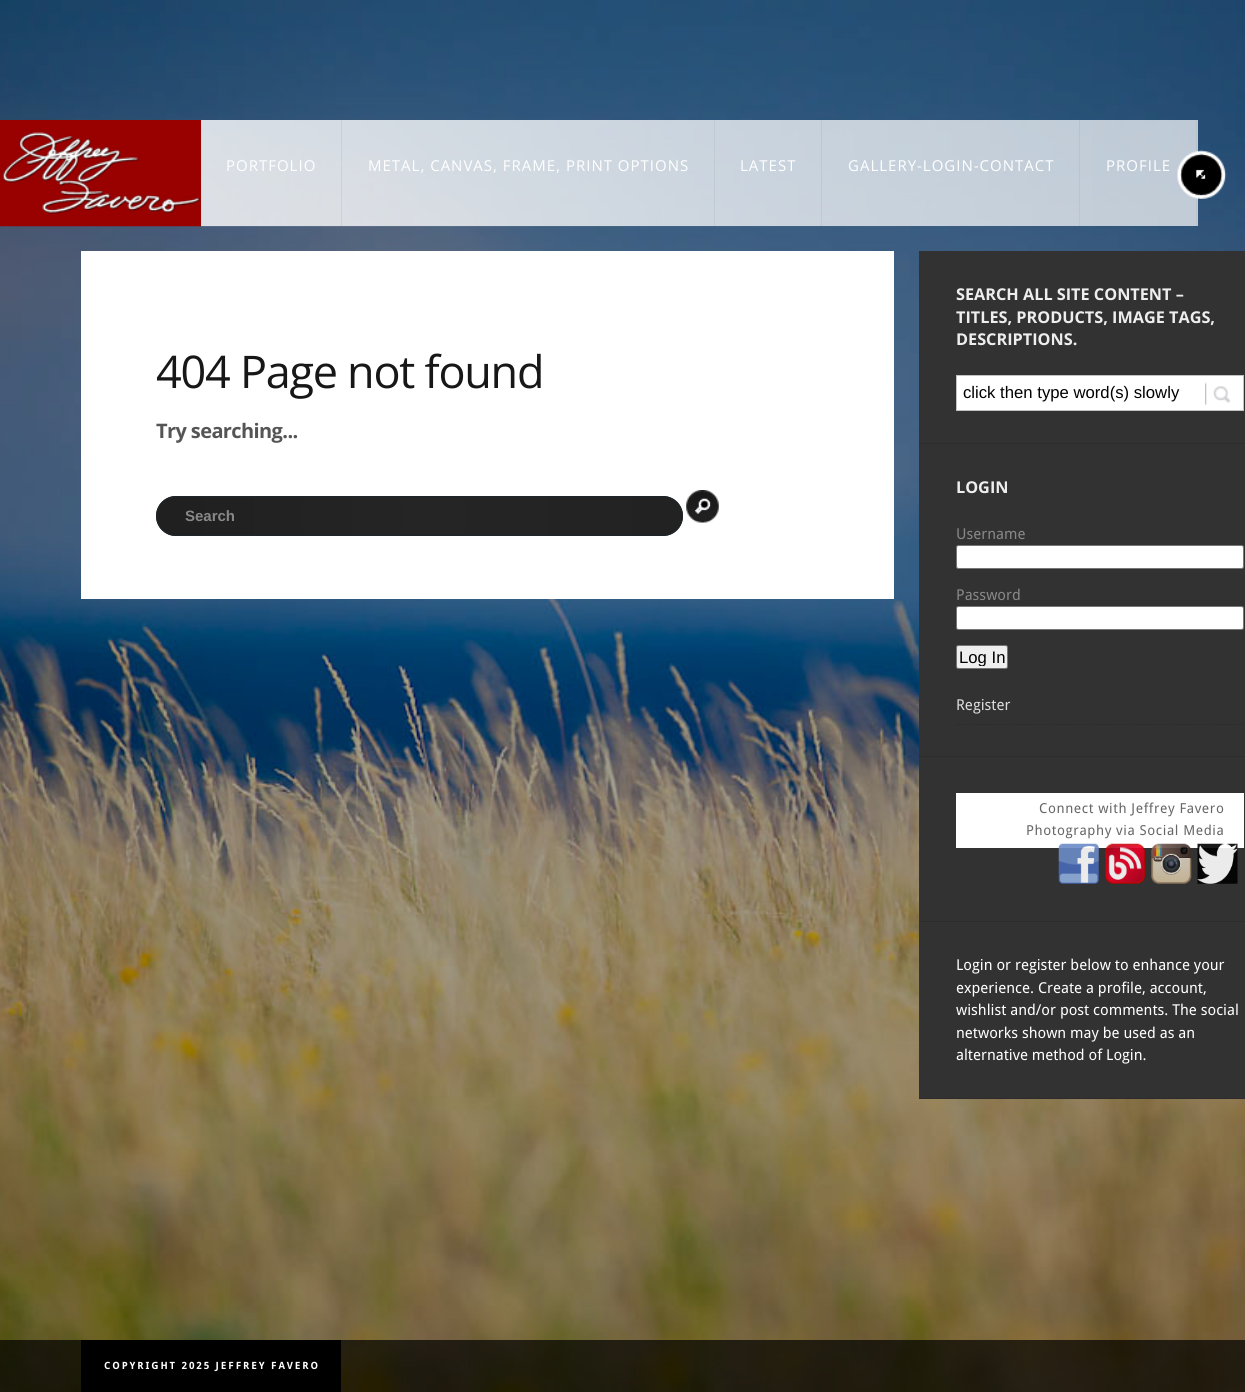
#include <cairo.h>
#include <math.h>
#include <stddef.h>


static void set_color(cairo_t *cr, unsigned color) {
    cairo_set_source_rgb(cr, (color >> 16) / 255.0, (color >> 8 & 255) / 255.0, (color & 255) / 255.0);
}

static void draw_text(cairo_t *cr, double x, double y, const char *s, const char *family, double size, int italic, int bold, unsigned color) {
    cairo_select_font_face(cr, family, italic ? CAIRO_FONT_SLANT_ITALIC : CAIRO_FONT_SLANT_NORMAL,
        bold ? CAIRO_FONT_WEIGHT_BOLD : CAIRO_FONT_WEIGHT_NORMAL);
    cairo_set_font_size(cr, size);
    set_color(cr, color);
    cairo_move_to(cr, x, y);
    cairo_show_text(cr, s);
}

static void draw_spaced(cairo_t *cr, double x, double y, const char *s, double letter, double word) {
    cairo_move_to(cr, x, y);
    while (*s) {
        char ch[5] = {0};
        int n = 0;
        do ch[n++] = *s++; while ((*s & 0xC0) == 0x80);
        cairo_show_text(cr, ch);
        cairo_rel_move_to(cr, letter + word * (*ch == ' '), 0);
    }
}

static void fill_rect(cairo_t *cr, double x, double y, double w, double h, unsigned color) {
    set_color(cr, color);
    cairo_rectangle(cr, x, y, w, h);
    cairo_fill(cr);
}

static void rounded_rect(cairo_t *cr, double x, double y, double w, double h, double r) {
    cairo_new_sub_path(cr);
    cairo_arc(cr, x + w - r, y + h - r, r, 0, M_PI / 2);
    cairo_arc(cr, x + r, y + h - r, r, M_PI / 2, M_PI);
    cairo_arc(cr, x + r, y + r, r, M_PI, 1.5 * M_PI);
    cairo_arc(cr, x + w - r, y + r, r, 1.5 * M_PI, 2 * M_PI);
    cairo_close_path(cr);
}

static void draw_image(cairo_t *cr, const char *path, double x, double y, double w, double h) {
    cairo_surface_t *image = cairo_image_surface_create_from_png(path);
    cairo_save(cr);
    cairo_set_source_surface(cr, image, x, y);
    cairo_rectangle(cr, x, y, w, h);
    cairo_fill(cr);
    cairo_restore(cr);
    cairo_surface_destroy(image);
}

int main(void) {
    cairo_surface_t *surface = cairo_image_surface_create(CAIRO_FORMAT_RGB24, 1245, 1392);
    cairo_t *cr = cairo_create(surface);
    cairo_font_options_t *options = cairo_font_options_create();
    cairo_font_options_set_hint_metrics(options, CAIRO_HINT_METRICS_OFF);
    cairo_font_options_set_hint_style(options, CAIRO_HINT_STYLE_NONE);
    cairo_set_font_options(cr, options);
    cairo_set_miter_limit(cr, 4);
    cairo_pattern_t *gradient;
    set_color(cr, 0x000000);
    cairo_paint(cr);
    draw_image(cr, "assets/img1.png", 0, 0, 1245, 1392);
    draw_image(cr, "assets/img2.png", 0, 120, 202, 107);
    draw_image(cr, "assets/img3.png", 201, 120, 891, 107);
    cairo_set_source_rgba(cr, 1, 1, 1, 0.7);
    cairo_rectangle(cr, 201, 120, 142, 106);
    cairo_fill(cr);
    cairo_set_source_rgba(cr, 0.608, 0.608, 0.608, 0.2);
    cairo_rectangle(cr, 341, 120, 1, 106);
    cairo_fill(cr);
    cairo_select_font_face(cr, "Open Sans", CAIRO_FONT_SLANT_NORMAL, CAIRO_FONT_WEIGHT_NORMAL);
    cairo_set_font_size(cr, 15);
    set_color(cr, 0xFFFFFF);
    draw_spaced(cr, 226, 171, "PORTFOLIO", 1, 0);
    cairo_set_source_rgba(cr, 1, 1, 1, 0.7);
    cairo_rectangle(cr, 343, 120, 372, 106);
    cairo_fill(cr);
    cairo_set_source_rgba(cr, 0.608, 0.608, 0.608, 0.2);
    cairo_rectangle(cr, 714, 120, 1, 106);
    cairo_fill(cr);
    set_color(cr, 0xFFFFFF);
    draw_spaced(cr, 368, 171, "METAL, CANVAS, FRAME, PRINT OPTIONS", 1, 0);
    cairo_set_source_rgba(cr, 1, 1, 1, 0.7);
    cairo_rectangle(cr, 715, 120, 108, 106);
    cairo_fill(cr);
    cairo_set_source_rgba(cr, 0.608, 0.608, 0.608, 0.2);
    cairo_rectangle(cr, 821, 120, 1, 106);
    cairo_fill(cr);
    set_color(cr, 0xFFFFFF);
    draw_spaced(cr, 740, 171, "LATEST", 1, 0);
    cairo_set_source_rgba(cr, 1, 1, 1, 0.7);
    cairo_rectangle(cr, 823, 120, 257, 106);
    cairo_fill(cr);
    cairo_set_source_rgba(cr, 0.608, 0.608, 0.608, 0.2);
    cairo_rectangle(cr, 1079, 120, 1, 106);
    cairo_fill(cr);
    set_color(cr, 0xFFFFFF);
    draw_spaced(cr, 848, 171, "GALLERY-LOGIN-CONTACT", 1, 0);
    cairo_set_source_rgba(cr, 1, 1, 1, 0.7);
    cairo_rectangle(cr, 1080, 120, 118, 106);
    cairo_fill(cr);
    cairo_set_source_rgba(cr, 0.608, 0.608, 0.608, 0.2);
    cairo_rectangle(cr, 1196, 120, 1, 106);
    cairo_fill(cr);
    set_color(cr, 0xFFFFFF);
    draw_spaced(cr, 1106, 171, "PROFILE", 1, 0);
    draw_image(cr, "assets/img4.png", 1177, 150, 50, 49);
    fill_rect(cr, 81, 251, 813, 348, 0xFFFFFF);
    cairo_set_font_size(cr, 45);
    set_color(cr, 0x171717);
    draw_spaced(cr, 156, 388, "404 Page not found", -1.25, 0);
    cairo_select_font_face(cr, "Open Sans", CAIRO_FONT_SLANT_NORMAL, CAIRO_FONT_WEIGHT_BOLD);
    cairo_set_font_size(cr, 20);
    set_color(cr, 0x555555);
    draw_spaced(cr, 156, 438, "Try searching...", -0.6, 0);
    cairo_save(cr);
    rounded_rect(cr, 156, 496, 527, 40, 20);
    cairo_clip(cr);
    gradient = cairo_pattern_create_linear(-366, 516, 158, 516);
    cairo_pattern_add_color_stop_rgba(gradient, 0.03, 0.125, 0.125, 0.125, 1);
    cairo_pattern_add_color_stop_rgba(gradient, 0.51, 0.145, 0.145, 0.145, 1);
    cairo_pattern_add_color_stop_rgba(gradient, 1, 0.133, 0.133, 0.133, 1);
    cairo_set_source(cr, gradient);
    cairo_pattern_destroy(gradient);
    cairo_rectangle(cr, 156, 507, 2, 18);
    cairo_fill(cr);
    gradient = cairo_pattern_create_linear(158, 516, 681, 516);
    cairo_pattern_add_color_stop_rgba(gradient, 0.03, 0.125, 0.125, 0.125, 1);
    cairo_pattern_add_color_stop_rgba(gradient, 0.51, 0.145, 0.145, 0.145, 1);
    cairo_pattern_add_color_stop_rgba(gradient, 1, 0.133, 0.133, 0.133, 1);
    cairo_set_source(cr, gradient);
    cairo_pattern_destroy(gradient);
    cairo_rectangle(cr, 158, 496, 523, 40);
    cairo_fill(cr);
    gradient = cairo_pattern_create_linear(681, 516, 1205, 516);
    cairo_pattern_add_color_stop_rgba(gradient, 0.03, 0.125, 0.125, 0.125, 1);
    cairo_pattern_add_color_stop_rgba(gradient, 0.51, 0.145, 0.145, 0.145, 1);
    cairo_pattern_add_color_stop_rgba(gradient, 1, 0.133, 0.133, 0.133, 1);
    cairo_set_source(cr, gradient);
    cairo_pattern_destroy(gradient);
    cairo_rectangle(cr, 681, 507, 2, 18);
    cairo_fill(cr);
    cairo_restore(cr);
    rounded_rect(cr, 156.5, 496.5, 526, 39, 19.5);
    set_color(cr, 0x1C252B);
    cairo_set_line_width(cr, 1);
    cairo_stroke(cr);
    draw_text(cr, 185, 521, "Search", "Liberation Sans", 15, 0, 1, 0x888888);
    draw_image(cr, "assets/img5.png", 686, 490, 33, 33);
    fill_rect(cr, 919, 251, 326, 847, 0x323232);
    fill_rect(cr, 919, 443, 326, 1, 0x2C2C2C);
    draw_text(cr, 956, 300, "SEARCH ALL SITE CONTENT –", "Open Sans", 16.25, 0, 1, 0xEEEEEE);
    draw_text(cr, 956, 323, "TITLES, PRODUCTS, IMAGE TAGS,", "Open Sans", 16.25, 0, 1, 0xEEEEEE);
    draw_text(cr, 956, 345, "DESCRIPTIONS.", "Open Sans", 16.25, 0, 1, 0xEEEEEE);
    set_color(cr, 0xFFFFFF);
    cairo_rectangle(cr, 956.5, 375.5, 287, 35);
    cairo_fill_preserve(cr);
    set_color(cr, 0xC2C2C2);
    cairo_stroke(cr);
    draw_text(cr, 963, 398, "click then type word(s) slowly", "Liberation Sans", 16.7, 0, 0, 0x000000);
    draw_image(cr, "assets/img6.png", 1205, 382, 25, 23);
    fill_rect(cr, 919, 756, 326, 1, 0x2C2C2C);
    draw_text(cr, 956, 493, "LOGIN", "Open Sans", 16.25, 0, 1, 0xEEEEEE);
    draw_text(cr, 956, 539, "Username", "Droid Sans", 15, 0, 0, 0x888888);
    set_color(cr, 0xFFFFFF);
    rounded_rect(cr, 956.5, 545.5, 287, 23, 2);
    cairo_fill_preserve(cr);
    set_color(cr, 0x767676);
    cairo_stroke(cr);
    draw_text(cr, 956, 600, "Password", "Droid Sans", 15, 0, 0, 0x888888);
    set_color(cr, 0xFFFFFF);
    rounded_rect(cr, 956.5, 606.5, 287, 23, 2);
    cairo_fill_preserve(cr);
    set_color(cr, 0x767676);
    cairo_stroke(cr);
    set_color(cr, 0xEFEFEF);
    rounded_rect(cr, 956.5, 645.5, 51, 23, 2);
    cairo_fill_preserve(cr);
    set_color(cr, 0x767676);
    cairo_stroke(cr);
    cairo_save(cr);
    cairo_rectangle(cr, 959, 648, 46, 18);
    cairo_clip(cr);
    draw_text(cr, 959, 663, "Log In", "Liberation Sans", 16.7, 0, 0, 0x000000);
    cairo_restore(cr);
    cairo_new_path(cr);
    cairo_move_to(cr, 956, 724.5);
    cairo_line_to(cr, 1244, 724.5);
    set_color(cr, 0x2B2B2B);
    cairo_set_line_width(cr, 1.2);
    cairo_set_dash(cr, (double[]){1.25, 1.25}, 2, 0);
    cairo_stroke(cr);
    draw_text(cr, 956, 710, "Register", "Droid Sans", 15, 0, 0, 0xDDDDDD);
    fill_rect(cr, 919, 921, 326, 1, 0x2C2C2C);
    fill_rect(cr, 956, 793, 288, 55, 0xFFFFFF);
    cairo_set_font_size(cr, 13.75);
    set_color(cr, 0x666666);
    draw_spaced(cr, 1039, 813, "Connect with Jeffrey Favero", 0.6, 0);
    draw_spaced(cr, 1026, 835, "Photography via Social Media", 0.6, 0);
    draw_image(cr, "assets/img7.png", 1058, 843, 41, 41);
    draw_image(cr, "assets/img8.png", 1105, 843, 40, 41);
    draw_image(cr, "assets/img9.png", 1151, 843, 41, 41);
    draw_image(cr, "assets/img10.png", 1197, 843, 41, 41);
    fill_rect(cr, 919, 1098, 326, 1, 0x2C2C2C);
    draw_text(cr, 956, 970, "Login or register below to enhance your", "Droid Sans", 15, 0, 0, 0xFFFFFF);
    draw_text(cr, 956, 993, "experience. Create a profile, account,", "Droid Sans", 15, 0, 0, 0xFFFFFF);
    draw_text(cr, 956, 1015, "wishlist and/or post comments. The social", "Droid Sans", 15, 0, 0, 0xFFFFFF);
    draw_text(cr, 956, 1038, "networks shown may be used as an", "Droid Sans", 15, 0, 0, 0xFFFFFF);
    draw_text(cr, 956, 1060, "alternative method of Login.", "Droid Sans", 15, 0, 0, 0xFFFFFF);
    cairo_set_source_rgba(cr, 0, 0, 0, 0.7);
    cairo_rectangle(cr, 0, 1340, 1245, 52);
    cairo_fill(cr);
    fill_rect(cr, 81, 1340, 260, 52, 0x000000);
    cairo_select_font_face(cr, "Droid Sans", CAIRO_FONT_SLANT_NORMAL, CAIRO_FONT_WEIGHT_BOLD);
    cairo_set_font_size(cr, 10);
    set_color(cr, 0xFFFFFF);
    draw_spaced(cr, 104, 1369, "COPYRIGHT 2025 JEFFREY FAVERO", 1.9, 0);
    cairo_surface_write_to_png(surface, "output.png");
    cairo_font_options_destroy(options);
    cairo_destroy(cr);
    cairo_surface_destroy(surface);
    return 0;
}
